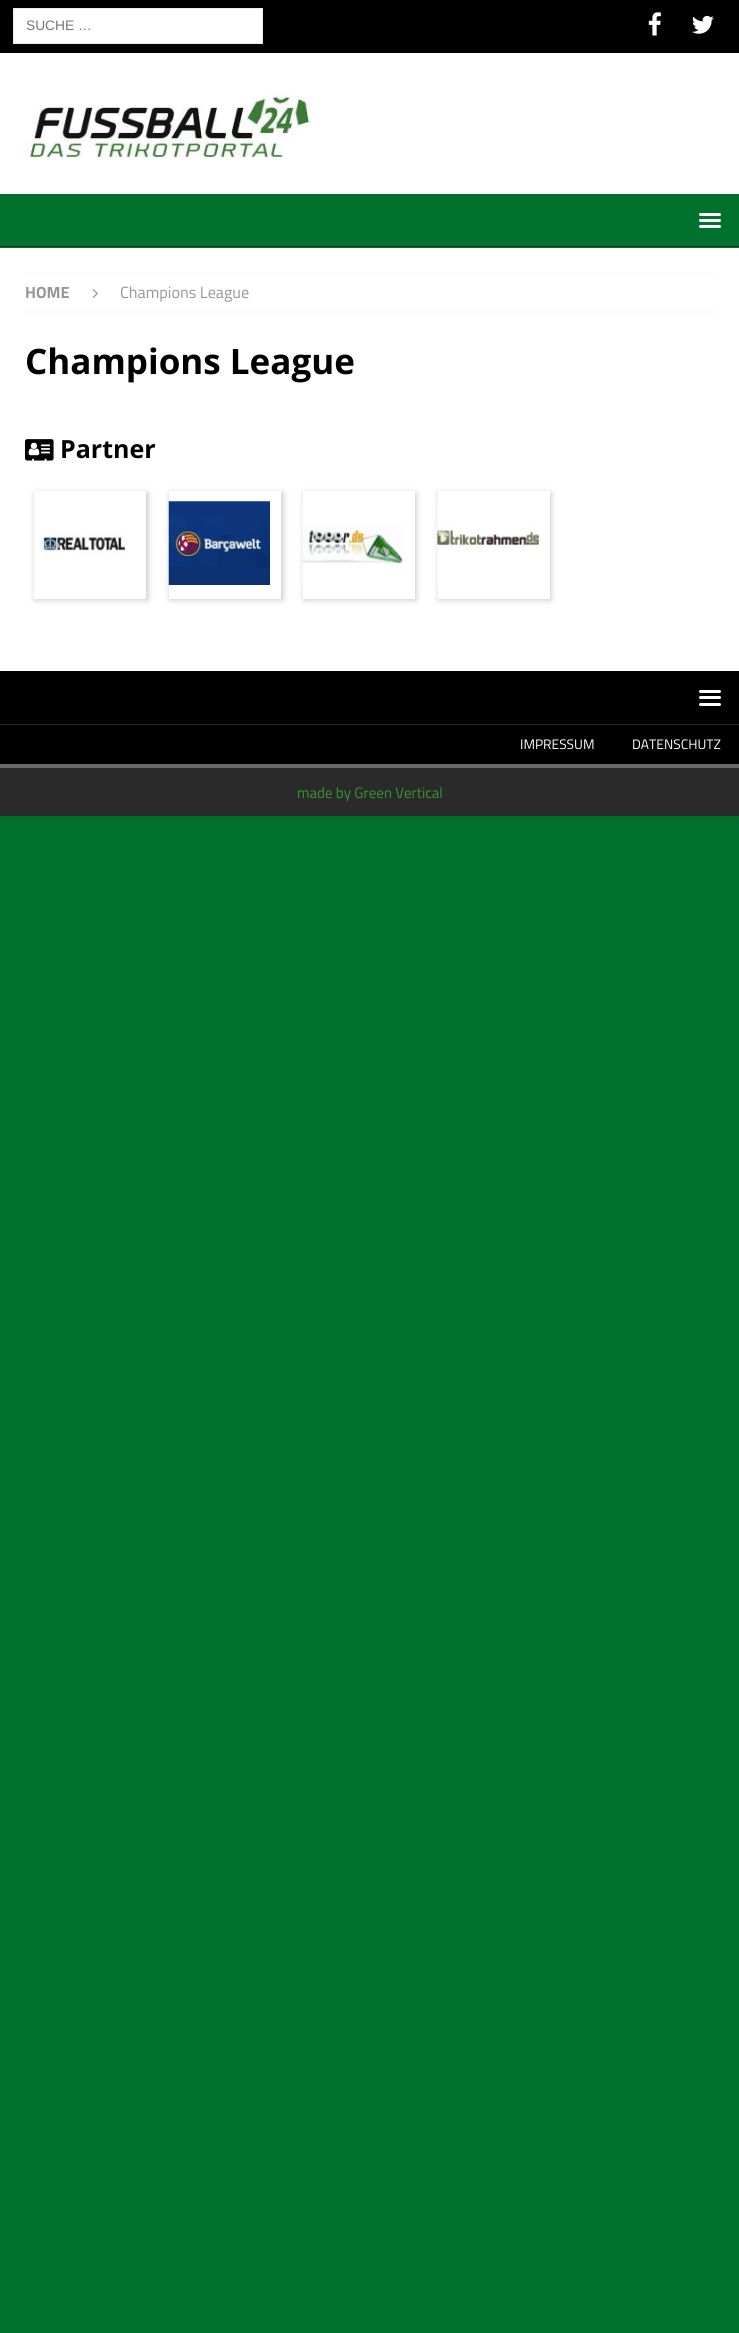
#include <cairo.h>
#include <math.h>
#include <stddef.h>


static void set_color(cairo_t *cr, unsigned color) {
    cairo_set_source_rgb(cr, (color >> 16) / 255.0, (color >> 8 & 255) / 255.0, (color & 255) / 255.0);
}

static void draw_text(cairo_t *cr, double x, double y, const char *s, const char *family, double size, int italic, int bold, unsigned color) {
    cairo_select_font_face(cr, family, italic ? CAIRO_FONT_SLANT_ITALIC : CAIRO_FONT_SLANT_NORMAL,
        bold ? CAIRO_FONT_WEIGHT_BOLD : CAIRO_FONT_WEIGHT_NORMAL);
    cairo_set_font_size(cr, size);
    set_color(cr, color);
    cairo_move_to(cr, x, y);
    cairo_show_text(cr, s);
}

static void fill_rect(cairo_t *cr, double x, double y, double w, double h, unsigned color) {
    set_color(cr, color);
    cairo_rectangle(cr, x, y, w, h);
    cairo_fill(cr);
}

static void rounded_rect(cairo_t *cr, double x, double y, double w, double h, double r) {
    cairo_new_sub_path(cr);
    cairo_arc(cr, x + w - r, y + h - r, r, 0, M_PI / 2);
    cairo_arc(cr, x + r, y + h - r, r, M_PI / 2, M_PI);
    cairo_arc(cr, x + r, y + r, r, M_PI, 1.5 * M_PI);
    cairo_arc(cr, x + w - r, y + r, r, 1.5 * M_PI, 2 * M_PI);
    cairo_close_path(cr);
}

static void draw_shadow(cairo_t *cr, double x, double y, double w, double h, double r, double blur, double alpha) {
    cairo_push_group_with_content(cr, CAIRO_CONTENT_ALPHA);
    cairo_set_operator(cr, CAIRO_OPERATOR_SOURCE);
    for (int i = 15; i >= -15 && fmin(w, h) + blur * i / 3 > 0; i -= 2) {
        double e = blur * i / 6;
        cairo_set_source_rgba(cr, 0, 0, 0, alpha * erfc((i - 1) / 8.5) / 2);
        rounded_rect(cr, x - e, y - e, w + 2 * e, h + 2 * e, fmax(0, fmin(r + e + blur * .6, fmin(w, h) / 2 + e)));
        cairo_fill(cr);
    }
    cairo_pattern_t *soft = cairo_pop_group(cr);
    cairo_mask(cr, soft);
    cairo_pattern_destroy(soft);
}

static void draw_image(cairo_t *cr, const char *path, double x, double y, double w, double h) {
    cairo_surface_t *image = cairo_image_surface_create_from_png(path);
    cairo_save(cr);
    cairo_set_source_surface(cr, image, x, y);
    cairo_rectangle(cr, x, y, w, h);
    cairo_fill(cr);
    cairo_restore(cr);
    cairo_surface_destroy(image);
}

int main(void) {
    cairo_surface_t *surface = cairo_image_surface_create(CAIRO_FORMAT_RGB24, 739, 2333);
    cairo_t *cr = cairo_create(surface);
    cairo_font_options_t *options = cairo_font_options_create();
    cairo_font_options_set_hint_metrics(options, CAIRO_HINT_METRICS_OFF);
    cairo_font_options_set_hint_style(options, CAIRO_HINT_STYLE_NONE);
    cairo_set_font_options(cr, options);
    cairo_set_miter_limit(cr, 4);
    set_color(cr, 0x00722E);
    cairo_paint(cr);
    set_color(cr, 0x323232);
    draw_shadow(cr, 0, 0, 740, 816, 0, 6, 0.17);
    fill_rect(cr, 0, 0, 739, 53, 0x010101);
    set_color(cr, 0xFFFFFF);
    cairo_rectangle(cr, 13.5, 8.5, 249, 35);
    cairo_fill_preserve(cr);
    set_color(cr, 0xEBEBEB);
    cairo_set_line_width(cr, 1);
    cairo_stroke(cr);
    draw_text(cr, 26, 30, "SUCHE …", "Liberation Sans", 13.75, 0, 0, 0x757575);
    draw_image(cr, "assets/img1.png", 648, 12, 13, 24);
    draw_image(cr, "assets/img2.png", 692, 15, 22, 19);
    fill_rect(cr, 0, 53, 739, 141, 0xFFFFFF);
    draw_image(cr, "assets/img3.png", 25, 92, 286, 67);
    fill_rect(cr, 0, 194, 739, 54, 0x00722E);
    fill_rect(cr, 0, 246, 739, 1, 0x2A2A2A);
    set_color(cr, 0xFFFFFF);
    rounded_rect(cr, 699, 213, 22, 3, 1.5);
    cairo_fill(cr);
    rounded_rect(cr, 699, 219, 22, 3, 1.5);
    cairo_fill(cr);
    rounded_rect(cr, 699, 225, 22, 3, 1.5);
    cairo_fill(cr);
    fill_rect(cr, 0, 248, 739, 423, 0xFFFFFF);
    cairo_save(cr);
    cairo_rectangle(cr, 25, 273, 690, 136);
    cairo_clip(cr);
    cairo_new_path(cr);
    cairo_move_to(cr, 25, 273);
    cairo_line_to(cr, 715, 273);
    set_color(cr, 0xEBEBEB);
    cairo_set_line_width(cr, 1.2);
    cairo_set_dash(cr, (double[]){1.25, 1.25}, 2, 0);
    cairo_stroke(cr);
    cairo_restore(cr);
    cairo_new_path(cr);
    cairo_move_to(cr, 25, 312);
    cairo_line_to(cr, 715, 312);
    set_color(cr, 0xEBEBEB);
    cairo_set_line_width(cr, 1.2);
    cairo_set_dash(cr, (double[]){1.25, 1.25}, 2, 0);
    cairo_stroke(cr);
    draw_text(cr, 25, 298, "HOME", "Titillium Web", 16.25, 0, 1, 0x979797);
    draw_image(cr, "assets/img4.png", 92, 289, 6, 9);
    draw_text(cr, 120, 298, "Champions League", "Titillium Web", 16.25, 0, 0, 0x979797);
    draw_text(cr, 25, 374, "Champions League", "Open Sans", 35, 0, 1, 0x000000);
    draw_image(cr, "assets/img5.png", 25, 439, 29, 22);
    draw_text(cr, 60, 458, "Partner", "Open Sans", 25, 0, 1, 0x000000);
    set_color(cr, 0xC8C8C8);
    draw_shadow(cr, 35, 493, 113, 107, 0, 3, 1);
    fill_rect(cr, 34, 491, 112, 108, 0xFFFFFF);
    draw_image(cr, "assets/img6.png", 41, 533, 86, 25);
    set_color(cr, 0xC8C8C8);
    draw_shadow(cr, 170, 493, 113, 107, 0, 3, 1);
    fill_rect(cr, 169, 491, 112, 108, 0xFFFFFF);
    draw_image(cr, "assets/img7.png", 168, 501, 102, 84);
    set_color(cr, 0xC8C8C8);
    draw_shadow(cr, 304, 493, 112, 107, 0, 3, 1);
    fill_rect(cr, 303, 491, 112, 108, 0xFFFFFF);
    draw_image(cr, "assets/img8.png", 302, 502, 102, 83);
    set_color(cr, 0xC8C8C8);
    draw_shadow(cr, 439, 493, 112, 107, 0, 3, 1);
    fill_rect(cr, 438, 491, 112, 108, 0xFFFFFF);
    draw_image(cr, "assets/img9.png", 437, 502, 102, 83);
    fill_rect(cr, 0, 671, 739, 53, 0x010101);
    fill_rect(cr, 0, 724, 739, 1, 0x2A2A2A);
    set_color(cr, 0xFFFFFF);
    rounded_rect(cr, 699, 690, 22, 3, 1.5);
    cairo_fill(cr);
    rounded_rect(cr, 699, 696, 22, 3, 1.5);
    cairo_fill(cr);
    rounded_rect(cr, 699, 703, 22, 3, 1.5);
    cairo_fill(cr);
    fill_rect(cr, 0, 725, 739, 39, 0x010101);
    draw_text(cr, 520, 749, "IMPRESSUM", "Titillium Web", 13.75, 0, 0, 0xFFFFFF);
    draw_text(cr, 632, 749, "DATENSCHUTZ", "Titillium Web", 13.75, 0, 0, 0xFFFFFF);
    fill_rect(cr, 0, 768, 739, 48, 0x2A2A2A);
    fill_rect(cr, 0, 764, 739, 4, 0x6A6A6A);
    draw_text(cr, 297, 798, "made by Green Vertical", "Titillium Web", 15, 0, 0, 0x37952F);
    cairo_surface_write_to_png(surface, "output.png");
    cairo_font_options_destroy(options);
    cairo_destroy(cr);
    cairo_surface_destroy(surface);
    return 0;
}
